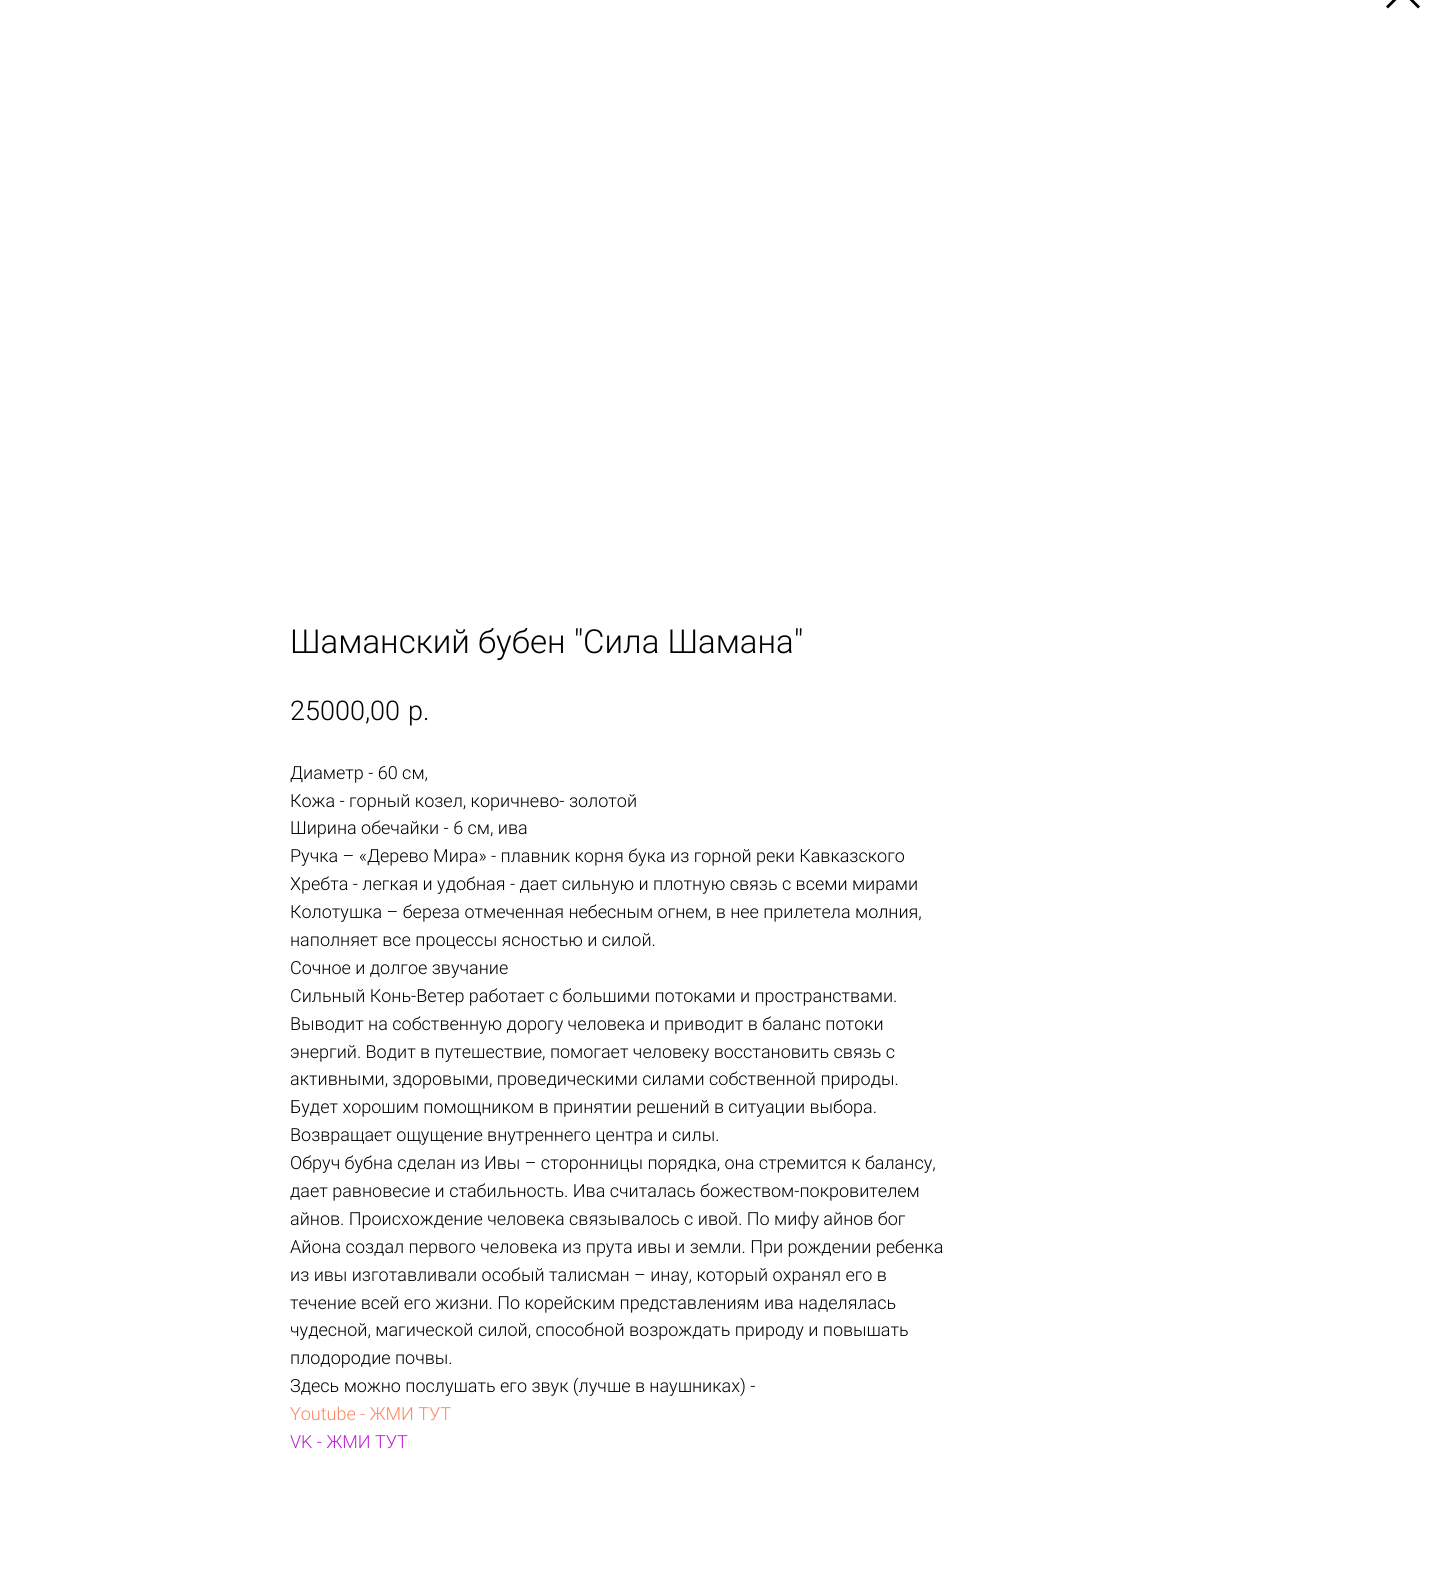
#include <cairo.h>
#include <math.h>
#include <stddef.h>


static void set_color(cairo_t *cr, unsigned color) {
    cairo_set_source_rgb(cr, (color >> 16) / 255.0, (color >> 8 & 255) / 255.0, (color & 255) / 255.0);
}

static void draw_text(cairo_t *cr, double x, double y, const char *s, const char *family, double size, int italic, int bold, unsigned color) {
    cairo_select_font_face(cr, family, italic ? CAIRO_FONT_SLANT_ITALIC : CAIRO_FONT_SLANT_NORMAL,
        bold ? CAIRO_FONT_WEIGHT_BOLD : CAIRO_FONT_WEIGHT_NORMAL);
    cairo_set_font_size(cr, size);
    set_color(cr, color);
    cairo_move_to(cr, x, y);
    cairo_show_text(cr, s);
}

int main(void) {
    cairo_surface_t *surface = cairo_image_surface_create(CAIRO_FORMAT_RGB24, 1450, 1589);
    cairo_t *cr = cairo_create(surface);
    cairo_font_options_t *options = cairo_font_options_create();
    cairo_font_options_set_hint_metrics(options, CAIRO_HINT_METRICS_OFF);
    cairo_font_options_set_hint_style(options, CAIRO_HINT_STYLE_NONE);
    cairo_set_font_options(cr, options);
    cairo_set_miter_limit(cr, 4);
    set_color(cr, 0xFFFFFF);
    cairo_paint(cr);
    set_color(cr, 0x000000);
    cairo_set_fill_rule(cr, CAIRO_FILL_RULE_EVEN_ODD);
    cairo_new_path(cr);
    cairo_move_to(cr, 1386, -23.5);
    cairo_line_to(cr, 1388, -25.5);
    cairo_line_to(cr, 1420, 6.5);
    cairo_line_to(cr, 1418, 8.5);
    cairo_close_path(cr);
    cairo_move_to(cr, 1418, -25.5);
    cairo_line_to(cr, 1420, -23.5);
    cairo_line_to(cr, 1388, 8.5);
    cairo_line_to(cr, 1386, 6.5);
    cairo_close_path(cr);
    cairo_fill(cr);
    draw_text(cr, 290, 653, "Шаманский бубен \"Сила Шамана\"", "Roboto Light", 33, 0, 0, 0x000000);
    draw_text(cr, 290, 720, "25000,00", "Roboto Light", 27, 0, 0, 0x000000);
    draw_text(cr, 408, 720, "р.", "Roboto Light", 27, 0, 0, 0x000000);
    draw_text(cr, 290, 779, "Диаметр - 60 см,", "Roboto Light", 18, 0, 0, 0x000000);
    draw_text(cr, 290, 807, "Кожа - горный козел, коричнево- золотой", "Roboto Light", 18, 0, 0, 0x000000);
    draw_text(cr, 290, 834, "Ширина обечайки - 6 см, ива", "Roboto Light", 18, 0, 0, 0x000000);
    draw_text(cr, 290, 862, "Ручка – «Дерево Мира» - плавник корня бука из горной реки Кавказского", "Roboto Light", 18, 0, 0, 0x000000);
    draw_text(cr, 290, 890, "Хребта - легкая и удобная - дает сильную и плотную связь с всеми мирами", "Roboto Light", 18, 0, 0, 0x000000);
    draw_text(cr, 290, 918, "Колотушка – береза отмеченная небесным огнем, в нее прилетела молния,", "Roboto Light", 18, 0, 0, 0x000000);
    draw_text(cr, 290, 946, "наполняет все процессы ясностью и силой.", "Roboto Light", 18, 0, 0, 0x000000);
    draw_text(cr, 290, 974, "Сочное и долгое звучание", "Roboto Light", 18, 0, 0, 0x000000);
    draw_text(cr, 290, 1002, "Сильный Конь-Ветер работает с большими потоками и пространствами.", "Roboto Light", 18, 0, 0, 0x000000);
    draw_text(cr, 290, 1030, "Выводит на собственную дорогу человека и приводит в баланс потоки", "Roboto Light", 18, 0, 0, 0x000000);
    draw_text(cr, 290, 1058, "энергий. Водит в путешествие, помогает человеку восстановить связь с", "Roboto Light", 18, 0, 0, 0x000000);
    draw_text(cr, 290, 1085, "активными, здоровыми, проведическими силами собственной природы.", "Roboto Light", 18, 0, 0, 0x000000);
    draw_text(cr, 290, 1113, "Будет хорошим помощником в принятии решений в ситуации выбора.", "Roboto Light", 18, 0, 0, 0x000000);
    draw_text(cr, 290, 1141, "Возвращает ощущение внутреннего центра и силы.", "Roboto Light", 18, 0, 0, 0x000000);
    draw_text(cr, 290, 1169, "Обруч бубна сделан из Ивы – сторонницы порядка, она стремится к балансу,", "Roboto Light", 18, 0, 0, 0x000000);
    draw_text(cr, 290, 1197, "дает равновесие и стабильность. Ива считалась божеством-покровителем", "Roboto Light", 18, 0, 0, 0x000000);
    draw_text(cr, 290, 1225, "айнов. Происхождение человека связывалось с ивой. По мифу айнов бог", "Roboto Light", 18, 0, 0, 0x000000);
    draw_text(cr, 290, 1253, "Айона создал первого человека из прута ивы и земли. При рождении ребенка", "Roboto Light", 18, 0, 0, 0x000000);
    draw_text(cr, 290, 1281, "из ивы изготавливали особый талисман – инау, который охранял его в", "Roboto Light", 18, 0, 0, 0x000000);
    draw_text(cr, 290, 1309, "течение всей его жизни. По корейским представлениям ива наделялась", "Roboto Light", 18, 0, 0, 0x000000);
    draw_text(cr, 290, 1336, "чудесной, магической силой, способной возрождать природу и повышать", "Roboto Light", 18, 0, 0, 0x000000);
    draw_text(cr, 290, 1364, "плодородие почвы.", "Roboto Light", 18, 0, 0, 0x000000);
    draw_text(cr, 290, 1392, "Здесь можно послушать его звук (лучше в наушниках) -", "Roboto Light", 18, 0, 0, 0x000000);
    draw_text(cr, 290, 1420, "Youtube - ЖМИ ТУТ", "Roboto Light", 18, 0, 0, 0xFF8562);
    draw_text(cr, 290, 1448, "VK - ЖМИ ТУТ", "Roboto Light", 18, 0, 0, 0xC020D6);
    cairo_surface_write_to_png(surface, "output.png");
    cairo_font_options_destroy(options);
    cairo_destroy(cr);
    cairo_surface_destroy(surface);
    return 0;
}
